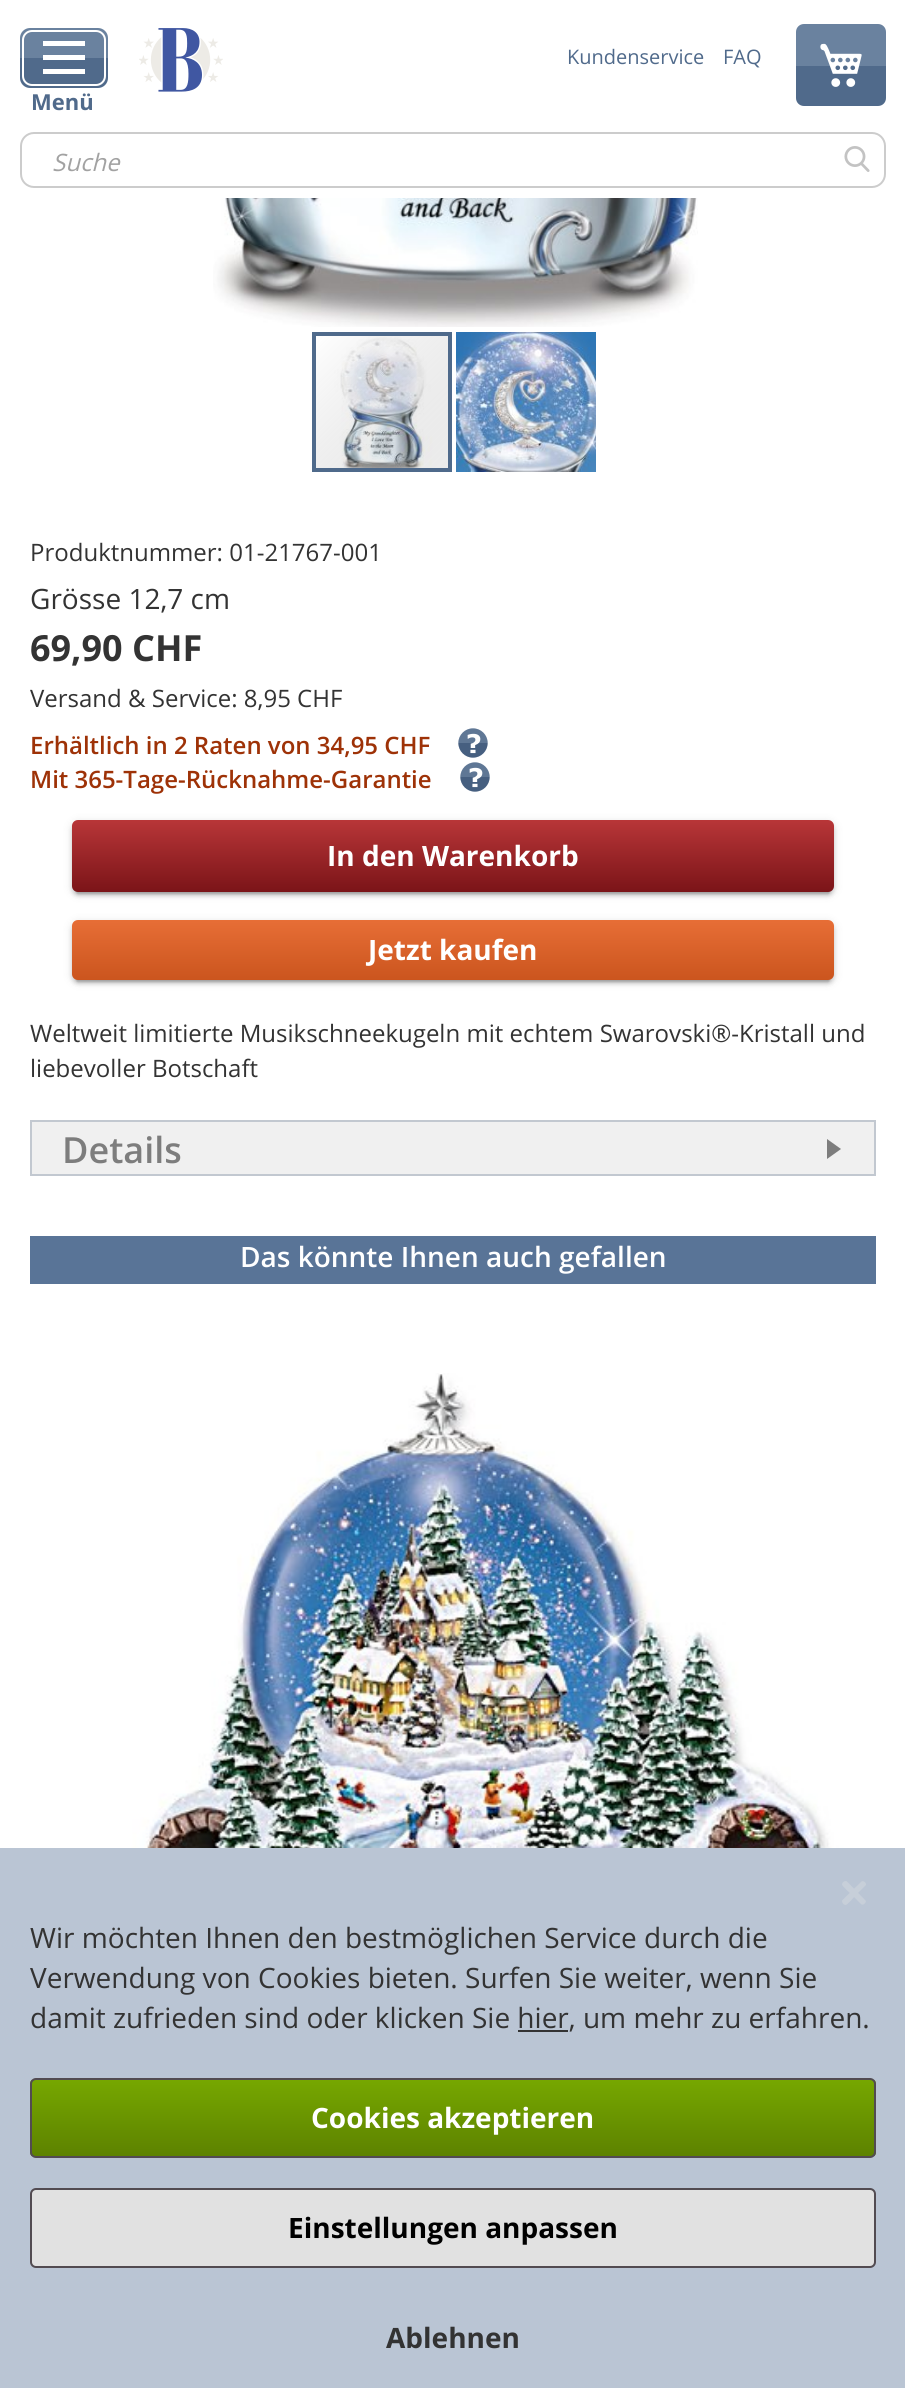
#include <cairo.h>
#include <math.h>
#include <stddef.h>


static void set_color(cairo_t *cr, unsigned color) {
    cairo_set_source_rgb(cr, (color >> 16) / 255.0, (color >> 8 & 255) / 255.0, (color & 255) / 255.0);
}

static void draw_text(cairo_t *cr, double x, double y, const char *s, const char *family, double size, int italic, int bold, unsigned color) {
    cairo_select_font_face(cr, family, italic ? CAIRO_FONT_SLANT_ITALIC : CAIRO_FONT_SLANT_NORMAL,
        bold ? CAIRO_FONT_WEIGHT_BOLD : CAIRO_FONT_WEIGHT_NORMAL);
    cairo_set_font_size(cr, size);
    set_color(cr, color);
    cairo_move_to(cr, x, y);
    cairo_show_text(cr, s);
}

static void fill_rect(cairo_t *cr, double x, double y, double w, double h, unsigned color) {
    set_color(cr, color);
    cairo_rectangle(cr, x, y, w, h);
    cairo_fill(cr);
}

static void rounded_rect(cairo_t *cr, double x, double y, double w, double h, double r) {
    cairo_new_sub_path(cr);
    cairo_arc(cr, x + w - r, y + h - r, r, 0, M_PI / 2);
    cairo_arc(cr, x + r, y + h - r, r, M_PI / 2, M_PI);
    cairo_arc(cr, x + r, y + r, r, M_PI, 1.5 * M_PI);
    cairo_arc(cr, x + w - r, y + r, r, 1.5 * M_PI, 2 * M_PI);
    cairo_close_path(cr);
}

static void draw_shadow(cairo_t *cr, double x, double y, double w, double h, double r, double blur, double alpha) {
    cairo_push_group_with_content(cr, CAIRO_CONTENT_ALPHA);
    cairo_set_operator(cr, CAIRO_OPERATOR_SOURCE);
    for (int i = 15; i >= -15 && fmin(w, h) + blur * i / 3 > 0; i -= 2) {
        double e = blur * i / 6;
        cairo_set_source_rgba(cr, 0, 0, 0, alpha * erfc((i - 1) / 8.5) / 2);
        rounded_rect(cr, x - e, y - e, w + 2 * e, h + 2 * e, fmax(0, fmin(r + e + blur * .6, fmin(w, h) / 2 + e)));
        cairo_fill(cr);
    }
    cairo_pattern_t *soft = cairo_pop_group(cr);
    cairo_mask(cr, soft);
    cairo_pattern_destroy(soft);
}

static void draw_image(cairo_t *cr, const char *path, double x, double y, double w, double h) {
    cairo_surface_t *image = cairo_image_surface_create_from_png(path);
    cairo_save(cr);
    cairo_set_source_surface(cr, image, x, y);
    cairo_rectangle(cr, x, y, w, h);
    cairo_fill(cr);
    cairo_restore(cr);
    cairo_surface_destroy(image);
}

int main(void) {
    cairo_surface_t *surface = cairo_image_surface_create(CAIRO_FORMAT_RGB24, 905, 2388);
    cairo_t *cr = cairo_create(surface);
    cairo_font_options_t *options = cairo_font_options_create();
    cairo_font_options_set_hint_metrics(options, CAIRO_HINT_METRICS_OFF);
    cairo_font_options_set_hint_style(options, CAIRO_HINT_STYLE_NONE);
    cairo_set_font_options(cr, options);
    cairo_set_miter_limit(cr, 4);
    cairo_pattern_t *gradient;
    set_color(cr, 0xFFFFFF);
    cairo_paint(cr);
    draw_image(cr, "assets/img1.png", 139, 28, 84, 64);
    draw_text(cr, 567, 64, "Kundenservice", "Open Sans", 20, 0, 0, 0x506A8B);
    draw_text(cr, 723, 64, "FAQ", "Open Sans", 20, 0, 0, 0x506A8B);
    set_color(cr, 0x6A829F);
    cairo_new_path(cr);
    cairo_move_to(cr, 804, 24);
    cairo_line_to(cr, 878, 24);
    cairo_curve_to(cr, 882.5, 24, 886, 27.5, 886, 32);
    cairo_line_to(cr, 886, 66);
    cairo_line_to(cr, 796, 66);
    cairo_line_to(cr, 796, 32);
    cairo_curve_to(cr, 796, 27.5, 799.5, 24, 804, 24);
    cairo_close_path(cr);
    cairo_fill(cr);
    set_color(cr, 0x506A8B);
    cairo_new_path(cr);
    cairo_move_to(cr, 796, 66);
    cairo_line_to(cr, 886, 66);
    cairo_line_to(cr, 886, 98);
    cairo_curve_to(cr, 886, 102.5, 882.5, 106, 878, 106);
    cairo_line_to(cr, 804, 106);
    cairo_curve_to(cr, 799.5, 106, 796, 102.5, 796, 98);
    cairo_close_path(cr);
    cairo_fill(cr);
    draw_image(cr, "assets/img2.png", 820, 43, 42, 44);
    set_color(cr, 0x6A829F);
    cairo_new_path(cr);
    cairo_move_to(cr, 30, 28);
    cairo_line_to(cr, 98, 28);
    cairo_curve_to(cr, 103.5, 28, 108, 32.5, 108, 38);
    cairo_line_to(cr, 108, 58);
    cairo_line_to(cr, 20, 58);
    cairo_line_to(cr, 20, 38);
    cairo_curve_to(cr, 20, 32.5, 24.5, 28, 30, 28);
    cairo_close_path(cr);
    cairo_fill(cr);
    set_color(cr, 0x506A8B);
    cairo_new_path(cr);
    cairo_move_to(cr, 20, 58);
    cairo_line_to(cr, 108, 58);
    cairo_line_to(cr, 108, 78);
    cairo_curve_to(cr, 108, 83.5, 103.5, 88, 98, 88);
    cairo_line_to(cr, 30, 88);
    cairo_curve_to(cr, 24.5, 88, 20, 83.5, 20, 78);
    cairo_close_path(cr);
    cairo_fill(cr);
    rounded_rect(cr, 23, 31, 82, 54, 9);
    set_color(cr, 0xFFFFFF);
    cairo_stroke(cr);
    cairo_new_path(cr);
    cairo_move_to(cr, 43, 41);
    cairo_line_to(cr, 43, 46);
    cairo_line_to(cr, 85, 46);
    cairo_line_to(cr, 85, 41);
    cairo_close_path(cr);
    cairo_move_to(cr, 43, 60);
    cairo_line_to(cr, 85, 60);
    cairo_line_to(cr, 85, 55);
    cairo_line_to(cr, 43, 55);
    cairo_close_path(cr);
    cairo_move_to(cr, 43, 74);
    cairo_line_to(cr, 85, 74);
    cairo_line_to(cr, 85, 69);
    cairo_line_to(cr, 43, 69);
    cairo_close_path(cr);
    cairo_fill(cr);
    draw_text(cr, 31, 110, "Menü", "Open Sans", 22, 0, 1, 0x506A8B);
    rounded_rect(cr, 21, 133, 864, 54, 13);
    set_color(cr, 0xCCCCCC);
    cairo_stroke(cr);
    draw_text(cr, 52, 171, "Suche", "Open Sans", 24, 1, 0, 0xA2A2A2);
    draw_image(cr, "assets/img3.png", 844, 146, 26, 26);
    draw_image(cr, "assets/img4.png", 213, 198, 485, 129);
    draw_image(cr, "assets/img6.png", 316, 336, 132, 132);
    cairo_rectangle(cr, 314, 334, 136, 136);
    set_color(cr, 0x4F6A8B);
    cairo_set_line_width(cr, 4);
    cairo_stroke(cr);
    draw_image(cr, "assets/img5.png", 456, 332, 140, 140);
    draw_text(cr, 30, 561, "Produktnummer: 01-21767-001", "Open Sans", 24, 0, 0, 0x333333);
    draw_text(cr, 30, 609, "Grösse 12,7 cm", "Open Sans", 28, 0, 0, 0x333333);
    draw_text(cr, 30, 661, "69,90 CHF", "Open Sans", 36, 0, 1, 0x333333);
    draw_text(cr, 30, 707, "Versand & Service: 8,95 CHF", "Open Sans", 24, 0, 0, 0x333333);
    draw_text(cr, 30, 754, "Erhältlich in 2 Raten von 34,95 CHF", "Open Sans SemiBold", 24, 0, 0, 0x9E3207);
    draw_image(cr, "assets/img7.png", 458, 728, 30, 30);
    draw_text(cr, 30, 788, "Mit 365-Tage-Rücknahme-Garantie", "Open Sans SemiBold", 24, 0, 0, 0x9E3207);
    draw_image(cr, "assets/img7.png", 460, 762, 30, 30);
    set_color(cr, 0x000000);
    draw_shadow(cr, 72, 822, 762, 72, 6, 5, 0.12);
    draw_shadow(cr, 72, 824, 762, 72, 6, 2, 0.14);
    draw_shadow(cr, 76, 830, 754, 64, 2, 1, 0.2);
    gradient = cairo_pattern_create_linear(453, 820, 453, 892);
    cairo_pattern_add_color_stop_rgba(gradient, 0, 0.722, 0.212, 0.22, 1);
    cairo_pattern_add_color_stop_rgba(gradient, 1, 0.482, 0.078, 0.094, 1);
    cairo_set_source(cr, gradient);
    cairo_pattern_destroy(gradient);
    rounded_rect(cr, 72, 820, 762, 72, 6);
    cairo_fill(cr);
    draw_text(cr, 327, 866, "In den Warenkorb", "Open Sans", 28, 0, 1, 0xFFFFFF);
    set_color(cr, 0x000000);
    draw_shadow(cr, 72, 922, 762, 60, 6, 5, 0.12);
    draw_shadow(cr, 72, 924, 762, 60, 6, 2, 0.14);
    draw_shadow(cr, 76, 930, 754, 52, 2, 1, 0.2);
    gradient = cairo_pattern_create_linear(453, 920, 453, 980);
    cairo_pattern_add_color_stop_rgba(gradient, 0, 0.906, 0.431, 0.212, 1);
    cairo_pattern_add_color_stop_rgba(gradient, 1, 0.796, 0.333, 0.118, 1);
    cairo_set_source(cr, gradient);
    cairo_pattern_destroy(gradient);
    rounded_rect(cr, 72, 920, 762, 60, 6);
    cairo_fill(cr);
    draw_text(cr, 368, 960, "Jetzt kaufen", "Open Sans", 28, 0, 1, 0xFFFFFF);
    draw_text(cr, 30, 1042, "Weltweit limitierte Musikschneekugeln mit echtem Swarovski®-Kristall und", "Open Sans", 24, 0, 0, 0x333333);
    draw_text(cr, 30, 1077, "liebevoller Botschaft", "Open Sans", 24, 0, 0, 0x333333);
    set_color(cr, 0xF0F0F0);
    cairo_rectangle(cr, 31, 1121, 844, 54);
    cairo_fill_preserve(cr);
    set_color(cr, 0xC2C8D0);
    cairo_set_line_width(cr, 2);
    cairo_stroke(cr);
    draw_text(cr, 62, 1163, "Details", "Open Sans SemiBold", 36, 0, 0, 0x7D7D7D);
    cairo_new_path(cr);
    cairo_move_to(cr, 827, 1159);
    cairo_line_to(cr, 827, 1139);
    cairo_line_to(cr, 841, 1149);
    cairo_close_path(cr);
    cairo_fill(cr);
    fill_rect(cr, 30, 1236, 846, 48, 0x597497);
    draw_text(cr, 240, 1267, "Das könnte Ihnen auch gefallen", "Open Sans SemiBold", 28, 0, 0, 0xFFFFFF);
    draw_image(cr, "assets/img8.png", 54, 1373, 820, 475);
    fill_rect(cr, 0, 1848, 905, 540, 0xBAC5D4);
    set_color(cr, 0xC7CFD9);
    cairo_new_path(cr);
    cairo_move_to(cr, 847, 1881.5);
    cairo_line_to(cr, 865.5, 1900.5);
    cairo_curve_to(cr, 867, 1902, 863.5, 1905.5, 861.5, 1904.5);
    cairo_line_to(cr, 852, 1895);
    cairo_curve_to(cr, 850.5, 1893.5, 842, 1886, 842, 1884.5);
    cairo_curve_to(cr, 842, 1882.5, 845, 1880, 847, 1881.5);
    cairo_close_path(cr);
    cairo_fill(cr);
    cairo_new_path(cr);
    cairo_move_to(cr, 842.5, 1900);
    cairo_line_to(cr, 861.5, 1881.5);
    cairo_curve_to(cr, 863.5, 1880, 866.5, 1883, 866, 1885);
    cairo_line_to(cr, 856, 1895);
    cairo_curve_to(cr, 854.5, 1896.5, 847.5, 1905, 845.5, 1905);
    cairo_curve_to(cr, 843.5, 1905, 841, 1901.5, 842.5, 1900);
    cairo_close_path(cr);
    cairo_fill(cr);
    draw_text(cr, 30, 1948, "Wir möchten Ihnen den bestmöglichen Service durch die", "Open Sans", 28, 0, 0, 0x333333);
    draw_text(cr, 30, 1988, "Verwendung von Cookies bieten. Surfen Sie weiter, wenn Sie", "Open Sans", 28, 0, 0, 0x333333);
    draw_text(cr, 30, 2028, "damit zufrieden sind oder klicken Sie hier, um mehr zu erfahren.", "Open Sans", 28, 0, 0, 0x333333);
    fill_rect(cr, 518, 2030, 50, 2, 0x333333);
    cairo_save(cr);
    rounded_rect(cr, 30, 2078, 846, 80, 6);
    cairo_clip(cr);
    gradient = cairo_pattern_create_linear(453, 2080, 453, 2156);
    cairo_pattern_add_color_stop_rgba(gradient, 0, 0.463, 0.655, 0, 1);
    cairo_pattern_add_color_stop_rgba(gradient, 1, 0.365, 0.51, 0, 1);
    cairo_set_source(cr, gradient);
    cairo_pattern_destroy(gradient);
    cairo_rectangle(cr, 30, 2080, 846, 76);
    cairo_fill(cr);
    cairo_restore(cr);
    rounded_rect(cr, 31, 2079, 844, 78, 5);
    set_color(cr, 0x524B51);
    cairo_stroke(cr);
    draw_text(cr, 311, 2128, "Cookies akzeptieren", "Open Sans", 28, 0, 1, 0xFFFFFF);
    set_color(cr, 0xE1E1E1);
    rounded_rect(cr, 31, 2189, 844, 78, 5);
    cairo_fill_preserve(cr);
    set_color(cr, 0x524B51);
    cairo_stroke(cr);
    draw_text(cr, 288, 2238, "Einstellungen anpassen", "Open Sans", 28, 0, 1, 0x000000);
    draw_text(cr, 386, 2348, "Ablehnen", "Open Sans", 28, 0, 1, 0x333333);
    cairo_surface_write_to_png(surface, "output.png");
    cairo_font_options_destroy(options);
    cairo_destroy(cr);
    cairo_surface_destroy(surface);
    return 0;
}
